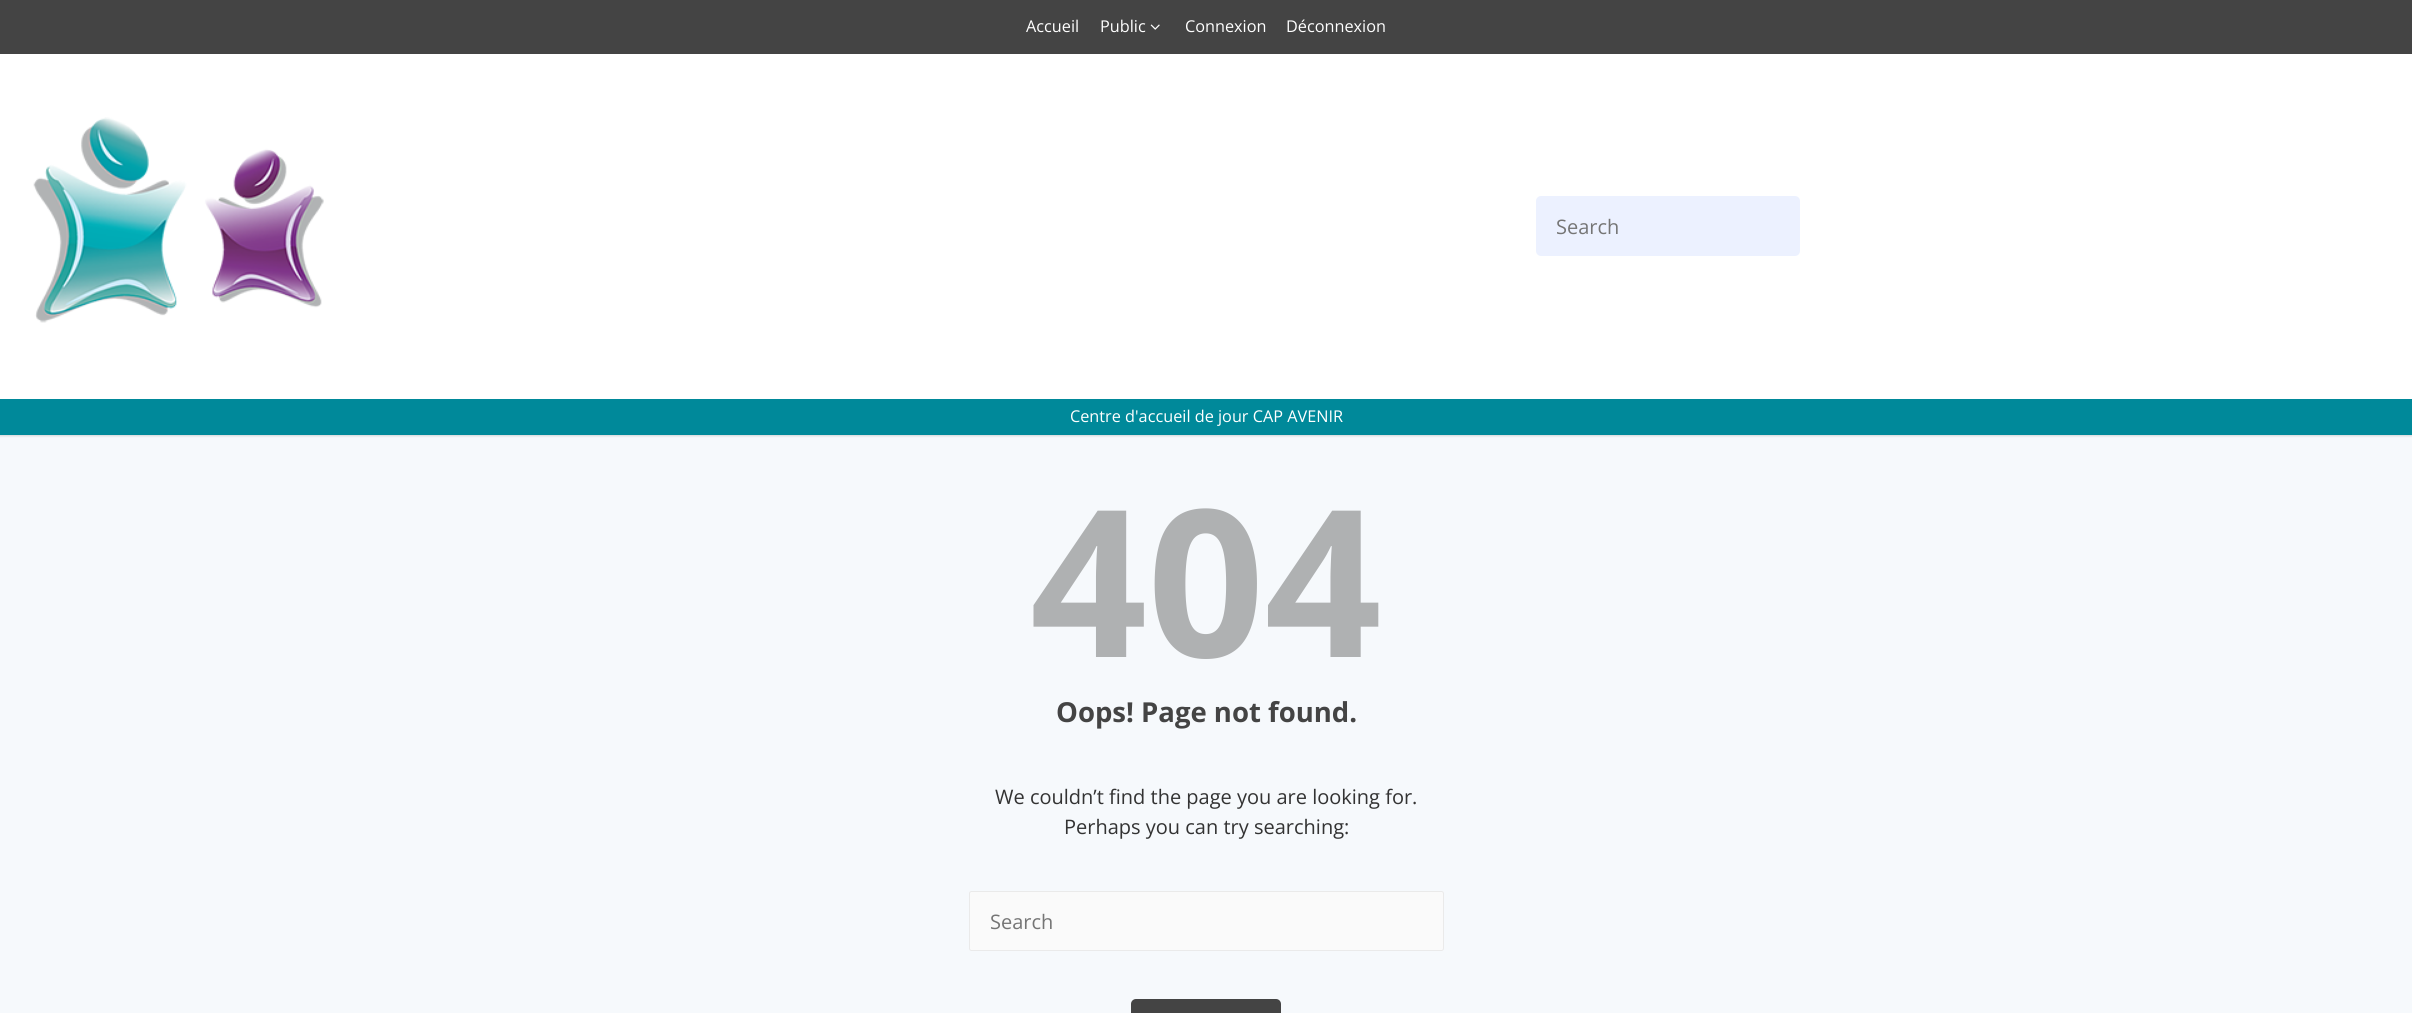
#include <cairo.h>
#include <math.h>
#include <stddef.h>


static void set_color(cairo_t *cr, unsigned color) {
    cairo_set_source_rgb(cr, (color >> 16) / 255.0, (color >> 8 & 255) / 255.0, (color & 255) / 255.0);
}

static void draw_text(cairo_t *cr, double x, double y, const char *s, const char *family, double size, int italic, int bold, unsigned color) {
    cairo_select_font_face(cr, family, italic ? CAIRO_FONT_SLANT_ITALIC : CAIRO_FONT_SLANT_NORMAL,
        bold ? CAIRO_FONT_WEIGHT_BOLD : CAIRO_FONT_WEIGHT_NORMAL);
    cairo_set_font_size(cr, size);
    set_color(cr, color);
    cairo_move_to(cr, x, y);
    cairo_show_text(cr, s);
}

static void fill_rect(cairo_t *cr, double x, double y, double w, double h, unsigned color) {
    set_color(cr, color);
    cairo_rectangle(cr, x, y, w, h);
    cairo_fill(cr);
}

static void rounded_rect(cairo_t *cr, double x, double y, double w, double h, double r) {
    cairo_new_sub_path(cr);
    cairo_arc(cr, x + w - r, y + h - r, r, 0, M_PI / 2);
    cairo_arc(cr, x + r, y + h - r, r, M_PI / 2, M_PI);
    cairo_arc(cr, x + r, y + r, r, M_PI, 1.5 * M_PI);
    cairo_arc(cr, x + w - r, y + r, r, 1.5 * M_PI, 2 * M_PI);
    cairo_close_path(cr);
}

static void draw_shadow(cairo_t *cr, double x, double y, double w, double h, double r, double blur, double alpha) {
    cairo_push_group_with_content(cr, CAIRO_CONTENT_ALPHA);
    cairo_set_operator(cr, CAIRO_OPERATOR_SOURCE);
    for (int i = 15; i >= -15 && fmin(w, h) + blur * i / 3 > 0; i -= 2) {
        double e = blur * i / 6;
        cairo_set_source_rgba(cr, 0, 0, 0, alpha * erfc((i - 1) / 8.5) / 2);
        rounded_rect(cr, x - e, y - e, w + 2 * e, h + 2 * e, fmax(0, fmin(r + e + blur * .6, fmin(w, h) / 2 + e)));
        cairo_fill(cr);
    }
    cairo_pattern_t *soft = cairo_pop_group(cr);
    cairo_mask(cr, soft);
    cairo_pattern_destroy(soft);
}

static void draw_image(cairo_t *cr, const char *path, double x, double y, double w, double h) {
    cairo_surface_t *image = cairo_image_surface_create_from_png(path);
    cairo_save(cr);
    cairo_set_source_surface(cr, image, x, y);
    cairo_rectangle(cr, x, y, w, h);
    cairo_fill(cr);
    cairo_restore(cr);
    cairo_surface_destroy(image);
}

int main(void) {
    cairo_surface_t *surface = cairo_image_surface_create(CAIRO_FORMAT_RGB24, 2412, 1013);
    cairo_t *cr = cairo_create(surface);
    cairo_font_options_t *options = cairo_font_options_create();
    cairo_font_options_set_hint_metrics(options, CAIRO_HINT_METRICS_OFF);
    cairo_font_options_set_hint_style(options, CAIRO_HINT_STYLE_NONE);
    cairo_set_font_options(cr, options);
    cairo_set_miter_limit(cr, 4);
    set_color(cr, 0xF6F9FC);
    cairo_paint(cr);
    set_color(cr, 0x060808);
    draw_shadow(cr, -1, -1, 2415, 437, 0, 1, 0.15);
    fill_rect(cr, 0, 54, 2412, 345, 0xFFFFFF);
    fill_rect(cr, 0, 0, 2412, 54, 0x444444);
    draw_text(cr, 1026, 32, "Accueil", "Open Sans", 16.25, 0, 0, 0xFFFFFF);
    draw_text(cr, 1100, 32, "Public", "Open Sans", 16.25, 0, 0, 0xFFFFFF);
    draw_image(cr, "assets/img1.png", 1150, 24, 10, 6);
    draw_text(cr, 1185, 32, "Connexion", "Open Sans", 16.25, 0, 0, 0xFFFFFF);
    draw_text(cr, 1286, 32, "Déconnexion", "Open Sans", 16.25, 0, 0, 0xFFFFFF);
    draw_image(cr, "assets/img2.png", 33, 117, 291, 206);
    set_color(cr, 0xECF1FF);
    rounded_rect(cr, 1536, 196, 264, 60, 5);
    cairo_fill(cr);
    draw_text(cr, 1556, 234, "Search", "Open Sans", 20, 0, 0, 0x757575);
    fill_rect(cr, 0, 399, 2412, 36, 0x00899A);
    draw_text(cr, 1070, 422, "Centre d'accueil de jour CAP AVENIR", "Open Sans", 16.25, 0, 0, 0xFFFFFF);
    draw_text(cr, 1030, 657, "404", "Open Sans", 205, 0, 1, 0xAFB1B2);
    draw_text(cr, 1056, 722, "Oops! Page not found.", "Open Sans", 27.5, 0, 1, 0x444444);
    draw_text(cr, 995, 804, "We couldn’t find the page you are looking for.", "Open Sans", 20, 0, 0, 0x333333);
    draw_text(cr, 1064, 834, "Perhaps you can try searching:", "Open Sans", 20, 0, 0, 0x333333);
    set_color(cr, 0xFAFAFA);
    rounded_rect(cr, 969.5, 891.5, 474, 59, 2);
    cairo_fill_preserve(cr);
    set_color(cr, 0xEAEAEA);
    cairo_set_line_width(cr, 1);
    cairo_stroke(cr);
    draw_text(cr, 990, 929, "Search", "Open Sans", 20, 0, 0, 0x757575);
    set_color(cr, 0x444444);
    rounded_rect(cr, 1131, 999, 150, 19, 5);
    cairo_fill(cr);
    cairo_surface_write_to_png(surface, "output.png");
    cairo_font_options_destroy(options);
    cairo_destroy(cr);
    cairo_surface_destroy(surface);
    return 0;
}
